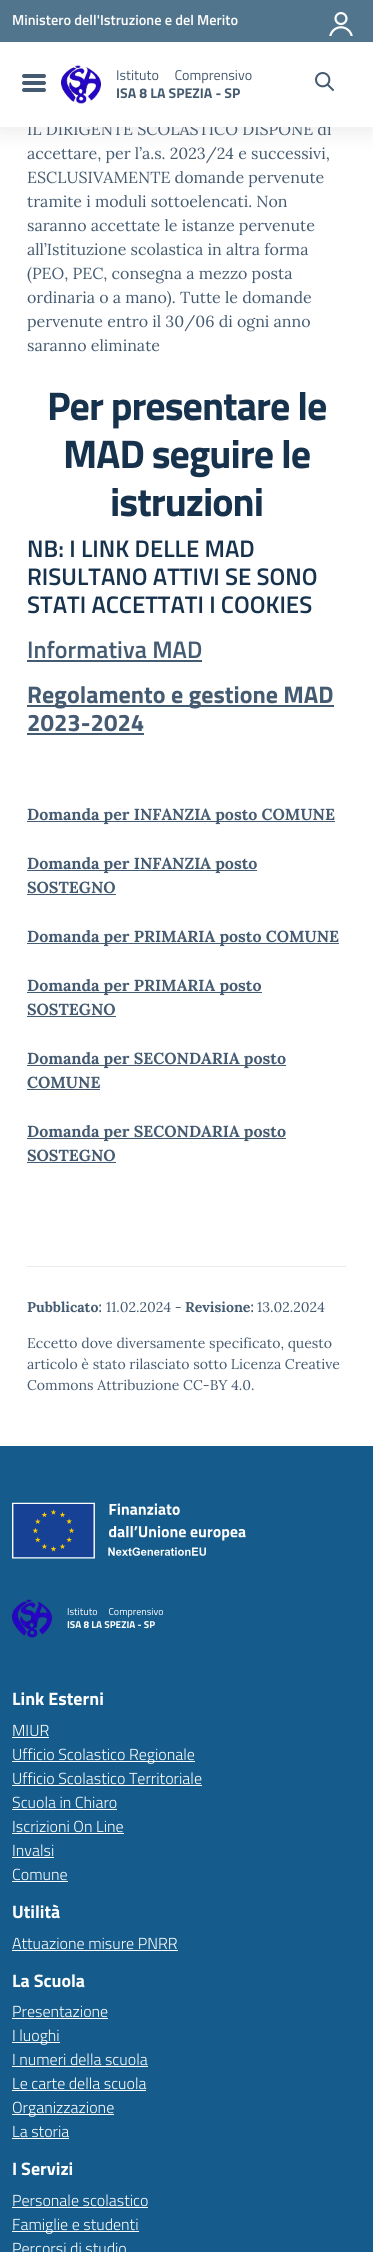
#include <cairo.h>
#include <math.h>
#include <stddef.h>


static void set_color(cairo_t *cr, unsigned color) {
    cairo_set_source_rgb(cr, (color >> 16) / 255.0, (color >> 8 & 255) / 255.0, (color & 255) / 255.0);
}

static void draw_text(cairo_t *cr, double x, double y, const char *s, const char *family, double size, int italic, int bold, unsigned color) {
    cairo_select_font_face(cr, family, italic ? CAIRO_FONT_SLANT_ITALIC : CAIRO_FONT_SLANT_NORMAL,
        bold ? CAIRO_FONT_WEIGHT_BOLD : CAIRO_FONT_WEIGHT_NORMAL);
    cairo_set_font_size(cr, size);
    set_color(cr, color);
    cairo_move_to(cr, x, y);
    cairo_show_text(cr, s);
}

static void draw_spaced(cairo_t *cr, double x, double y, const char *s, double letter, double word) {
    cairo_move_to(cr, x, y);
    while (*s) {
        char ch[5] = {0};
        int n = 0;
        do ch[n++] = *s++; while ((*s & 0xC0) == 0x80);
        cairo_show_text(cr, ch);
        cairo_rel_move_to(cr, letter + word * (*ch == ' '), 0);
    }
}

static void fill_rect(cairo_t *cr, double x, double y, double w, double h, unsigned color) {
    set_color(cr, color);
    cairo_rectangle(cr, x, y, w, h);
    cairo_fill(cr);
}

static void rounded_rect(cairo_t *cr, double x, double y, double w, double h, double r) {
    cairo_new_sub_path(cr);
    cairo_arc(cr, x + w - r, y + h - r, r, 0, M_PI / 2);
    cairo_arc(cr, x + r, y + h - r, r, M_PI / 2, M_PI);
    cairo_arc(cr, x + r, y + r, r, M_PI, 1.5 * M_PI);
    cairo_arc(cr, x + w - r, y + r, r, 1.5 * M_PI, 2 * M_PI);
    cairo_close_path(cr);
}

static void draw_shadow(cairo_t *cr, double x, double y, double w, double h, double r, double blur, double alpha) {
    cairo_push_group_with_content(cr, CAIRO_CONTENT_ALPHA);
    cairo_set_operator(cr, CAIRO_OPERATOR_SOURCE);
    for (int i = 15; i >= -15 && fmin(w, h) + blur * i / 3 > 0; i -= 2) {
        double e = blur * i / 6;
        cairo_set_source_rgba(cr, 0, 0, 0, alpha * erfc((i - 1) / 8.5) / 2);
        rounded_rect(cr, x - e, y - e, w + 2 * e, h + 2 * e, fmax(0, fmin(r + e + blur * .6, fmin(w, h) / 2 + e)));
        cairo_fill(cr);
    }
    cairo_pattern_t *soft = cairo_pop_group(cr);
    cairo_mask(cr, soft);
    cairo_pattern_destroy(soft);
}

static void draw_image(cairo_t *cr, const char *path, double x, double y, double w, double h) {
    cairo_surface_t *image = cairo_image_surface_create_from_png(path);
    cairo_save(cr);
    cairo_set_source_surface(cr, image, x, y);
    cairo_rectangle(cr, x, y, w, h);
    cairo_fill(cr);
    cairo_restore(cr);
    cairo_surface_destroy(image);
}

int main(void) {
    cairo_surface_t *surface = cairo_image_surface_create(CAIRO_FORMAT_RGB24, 373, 2252);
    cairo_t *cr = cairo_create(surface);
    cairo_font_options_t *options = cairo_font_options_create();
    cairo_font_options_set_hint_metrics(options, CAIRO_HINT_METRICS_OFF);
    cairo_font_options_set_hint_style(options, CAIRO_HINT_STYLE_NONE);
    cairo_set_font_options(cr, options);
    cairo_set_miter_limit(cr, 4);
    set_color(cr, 0xFFFFFF);
    cairo_paint(cr);
    set_color(cr, 0x000000);
    draw_shadow(cr, 0, 2, 373, 127, 0, 12.5, 0.1);
    draw_text(cr, 27, 135, "IL DIRIGENTE SCOLASTICO DISPONE di", "Lora", 16, 0, 0, 0x455B71);
    fill_rect(cr, 0, 42, 373, 85, 0xFFFFFF);
    fill_rect(cr, 0, 0, 373, 42, 0x51758D);
    draw_text(cr, 12, 25, "Ministero dell'Istruzione e del Merito", "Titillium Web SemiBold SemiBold", 14.4, 0, 0, 0xFFFFFF);
    draw_image(cr, "assets/img1.png", 329, 12, 24, 24);
    set_color(cr, 0x455B71);
    rounded_rect(cr, 22, 81, 24, 4, 2);
    cairo_fill(cr);
    rounded_rect(cr, 22, 74, 24, 4, 2);
    cairo_fill(cr);
    rounded_rect(cr, 22, 88, 24, 4, 2);
    cairo_fill(cr);
    draw_image(cr, "assets/img2.png", 61, 65, 40, 39);
    draw_text(cr, 116, 80, "Istituto     Comprensivo", "Titillium Web", 14.1, 0, 0, 0x455B71);
    draw_text(cr, 116, 98, "ISA 8 LA SPEZIA - SP", "Titillium Web", 14.1, 0, 1, 0x455B71);
    draw_image(cr, "assets/img3.png", 315, 72, 19, 19);
    draw_text(cr, 27, 159, "accettare, per l’a.s. 2023/24 e successivi,", "Lora", 16, 0, 0, 0x455B71);
    draw_text(cr, 27, 183, "ESCLUSIVAMENTE domande pervenute", "Lora", 16, 0, 0, 0x455B71);
    draw_text(cr, 27, 207, "tramite i moduli sottoelencati. Non", "Lora", 16, 0, 0, 0x455B71);
    draw_text(cr, 27, 231, "saranno accettate le istanze pervenute", "Lora", 16, 0, 0, 0x455B71);
    draw_text(cr, 27, 255, "all’Istituzione scolastica in altra forma", "Lora", 16, 0, 0, 0x455B71);
    draw_text(cr, 27, 279, "(PEO, PEC, consegna a mezzo posta", "Lora", 16, 0, 0, 0x455B71);
    draw_text(cr, 27, 303, "ordinaria o a mano). Tutte le domande", "Lora", 16, 0, 0, 0x455B71);
    draw_text(cr, 27, 327, "pervenute entro il 30/06 di ogni anno", "Lora", 16, 0, 0, 0x455B71);
    draw_text(cr, 27, 351, "saranno eliminate", "Lora", 16, 0, 0, 0x455B71);
    cairo_select_font_face(cr, "Titillium Web", CAIRO_FONT_SLANT_NORMAL, CAIRO_FONT_WEIGHT_BOLD);
    cairo_set_font_size(cr, 40);
    set_color(cr, 0x17324D);
    draw_spaced(cr, 47, 420, "Per presentare le", -1, 0);
    draw_spaced(cr, 63, 468, "MAD seguire le", -1, 0);
    draw_spaced(cr, 110, 516, "istruzioni", -1, 0);
    draw_text(cr, 27, 557, "NB: I LINK DELLE MAD", "Titillium Web SemiBold SemiBold", 24, 0, 0, 0x17324D);
    draw_text(cr, 27, 585, "RISULTANO ATTIVI SE SONO", "Titillium Web SemiBold SemiBold", 24, 0, 0, 0x17324D);
    draw_text(cr, 27, 613, "STATI ACCETTATI I COOKIES", "Titillium Web SemiBold SemiBold", 24, 0, 0, 0x17324D);
    draw_text(cr, 27, 658, "Informativa MAD", "Titillium Web SemiBold SemiBold", 24, 0, 0, 0x455B71);
    fill_rect(cr, 27, 660, 175, 2, 0x455B71);
    fill_rect(cr, 27, 705, 307, 2, 0x455B71);
    draw_text(cr, 27, 703, "Regolamento e gestione MAD", "Titillium Web", 24, 0, 1, 0x455B71);
    draw_text(cr, 27, 731, "2023-2024", "Titillium Web", 24, 0, 1, 0x455B71);
    fill_rect(cr, 27, 733, 117, 2, 0x455B71);
    fill_rect(cr, 27, 821, 308, 1, 0x455B71);
    draw_text(cr, 27, 820, "Domanda per INFANZIA posto COMUNE", "Lora", 16, 0, 1, 0x455B71);
    fill_rect(cr, 27, 870, 230, 1, 0x455B71);
    draw_text(cr, 27, 869, "Domanda per INFANZIA posto", "Lora", 16, 0, 1, 0x455B71);
    draw_text(cr, 27, 893, "SOSTEGNO", "Lora", 16, 0, 1, 0x455B71);
    fill_rect(cr, 27, 894, 89, 1, 0x455B71);
    fill_rect(cr, 27, 943, 312, 1, 0x455B71);
    draw_text(cr, 27, 942, "Domanda per PRIMARIA posto COMUNE", "Lora", 16, 0, 1, 0x455B71);
    fill_rect(cr, 27, 992, 235, 1, 0x455B71);
    draw_text(cr, 27, 991, "Domanda per PRIMARIA posto", "Lora", 16, 0, 1, 0x455B71);
    draw_text(cr, 27, 1015, "SOSTEGNO", "Lora", 16, 0, 1, 0x455B71);
    fill_rect(cr, 27, 1016, 89, 1, 0x455B71);
    fill_rect(cr, 27, 1065, 259, 1, 0x455B71);
    draw_text(cr, 27, 1064, "Domanda per SECONDARIA posto", "Lora", 16, 0, 1, 0x455B71);
    draw_text(cr, 27, 1088, "COMUNE", "Lora", 16, 0, 1, 0x455B71);
    fill_rect(cr, 27, 1089, 73, 1, 0x455B71);
    fill_rect(cr, 27, 1138, 259, 1, 0x455B71);
    draw_text(cr, 27, 1137, "Domanda per SECONDARIA posto", "Lora", 16, 0, 1, 0x455B71);
    draw_text(cr, 27, 1161, "SOSTEGNO", "Lora", 16, 0, 1, 0x455B71);
    fill_rect(cr, 27, 1162, 89, 1, 0x455B71);
    fill_rect(cr, 27, 1266, 319, 1, 0xE7EAED);
    draw_text(cr, 27, 1312, "Pubblicato:", "Lora", 14.1, 0, 1, 0x455B71);
    draw_text(cr, 106, 1312, "11.02.2024 -", "Lora", 14.1, 0, 0, 0x455B71);
    draw_text(cr, 185, 1312, "Revisione:", "Lora", 14.1, 0, 1, 0x455B71);
    draw_text(cr, 257, 1312, "13.02.2024", "Lora", 14.1, 0, 0, 0x455B71);
    draw_text(cr, 27, 1348, "Eccetto dove diversamente specificato, questo", "Lora", 14.1, 0, 0, 0x455B71);
    draw_text(cr, 27, 1369, "articolo è stato rilasciato sotto Licenza Creative", "Lora", 14.1, 0, 0, 0x455B71);
    draw_text(cr, 27, 1390, "Commons Attribuzione CC-BY 4.0.", "Lora", 14.1, 0, 0, 0x455B71);
    fill_rect(cr, 0, 1446, 373, 806, 0x155C8C);
    draw_image(cr, "assets/img4.png", 12, 1502, 234, 57);
    draw_image(cr, "assets/img5.png", 12, 1599, 40, 39);
    draw_text(cr, 67, 1615, "Istituto     Comprensivo", "Titillium Web", 10, 0, 0, 0xFFFFFF);
    draw_text(cr, 67, 1628, "ISA 8 LA SPEZIA - SP", "Titillium Web", 10, 0, 1, 0xFFFFFF);
    draw_text(cr, 12, 1705, "Link Esterni", "Titillium Web", 18, 0, 1, 0xFFFFFF);
    draw_text(cr, 12, 1736, "MIUR", "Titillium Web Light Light", 16, 0, 0, 0xFFFFFF);
    fill_rect(cr, 12, 1737, 37, 1, 0xFFFFFF);
    fill_rect(cr, 12, 1761, 183, 1, 0xFFFFFF);
    draw_text(cr, 12, 1760, "Ufficio Scolastico Regionale", "Titillium Web Light Light", 16, 0, 0, 0xFFFFFF);
    draw_text(cr, 12, 1784, "Ufficio Scolastico Territoriale", "Titillium Web Light Light", 16, 0, 0, 0xFFFFFF);
    fill_rect(cr, 12, 1785, 190, 1, 0xFFFFFF);
    draw_text(cr, 12, 1808, "Scuola in Chiaro", "Titillium Web Light Light", 16, 0, 0, 0xFFFFFF);
    fill_rect(cr, 12, 1809, 105, 1, 0xFFFFFF);
    draw_text(cr, 12, 1832, "Iscrizioni On Line", "Titillium Web Light Light", 16, 0, 0, 0xFFFFFF);
    fill_rect(cr, 12, 1833, 112, 1, 0xFFFFFF);
    draw_text(cr, 12, 1856, "Invalsi", "Titillium Web Light Light", 16, 0, 0, 0xFFFFFF);
    fill_rect(cr, 12, 1857, 42, 1, 0xFFFFFF);
    draw_text(cr, 12, 1880, "Comune", "Titillium Web Light Light", 16, 0, 0, 0xFFFFFF);
    fill_rect(cr, 12, 1881, 56, 1, 0xFFFFFF);
    draw_text(cr, 12, 1918, "Utilità", "Titillium Web", 18, 0, 1, 0xFFFFFF);
    draw_text(cr, 12, 1949, "Attuazione misure PNRR", "Titillium Web Light Light", 16, 0, 0, 0xFFFFFF);
    fill_rect(cr, 12, 1950, 166, 1, 0xFFFFFF);
    draw_text(cr, 12, 1987, "La Scuola", "Titillium Web", 18, 0, 1, 0xFFFFFF);
    draw_text(cr, 12, 2017, "Presentazione", "Titillium Web Light Light", 16, 0, 0, 0xFFFFFF);
    fill_rect(cr, 12, 2018, 96, 1, 0xFFFFFF);
    fill_rect(cr, 12, 2042, 48, 1, 0xFFFFFF);
    draw_text(cr, 12, 2041, "I luoghi", "Titillium Web Light Light", 16, 0, 0, 0xFFFFFF);
    draw_text(cr, 12, 2065, "I numeri della scuola", "Titillium Web Light Light", 16, 0, 0, 0xFFFFFF);
    fill_rect(cr, 12, 2066, 136, 1, 0xFFFFFF);
    draw_text(cr, 12, 2089, "Le carte della scuola", "Titillium Web Light Light", 16, 0, 0, 0xFFFFFF);
    fill_rect(cr, 12, 2090, 134, 1, 0xFFFFFF);
    fill_rect(cr, 12, 2114, 102, 1, 0xFFFFFF);
    draw_text(cr, 12, 2113, "Organizzazione", "Titillium Web Light Light", 16, 0, 0, 0xFFFFFF);
    draw_text(cr, 12, 2137, "La storia", "Titillium Web Light Light", 16, 0, 0, 0xFFFFFF);
    fill_rect(cr, 12, 2138, 57, 1, 0xFFFFFF);
    draw_text(cr, 12, 2175, "I Servizi", "Titillium Web", 18, 0, 1, 0xFFFFFF);
    draw_text(cr, 12, 2206, "Personale scolastico", "Titillium Web Light Light", 16, 0, 0, 0xFFFFFF);
    fill_rect(cr, 12, 2207, 136, 1, 0xFFFFFF);
    fill_rect(cr, 12, 2231, 127, 1, 0xFFFFFF);
    draw_text(cr, 12, 2230, "Famiglie e studenti", "Titillium Web Light Light", 16, 0, 0, 0xFFFFFF);
    draw_text(cr, 12, 2254, "Percorsi di studio", "Titillium Web Light Light", 16, 0, 0, 0xFFFFFF);
    cairo_surface_write_to_png(surface, "output.png");
    cairo_font_options_destroy(options);
    cairo_destroy(cr);
    cairo_surface_destroy(surface);
    return 0;
}
